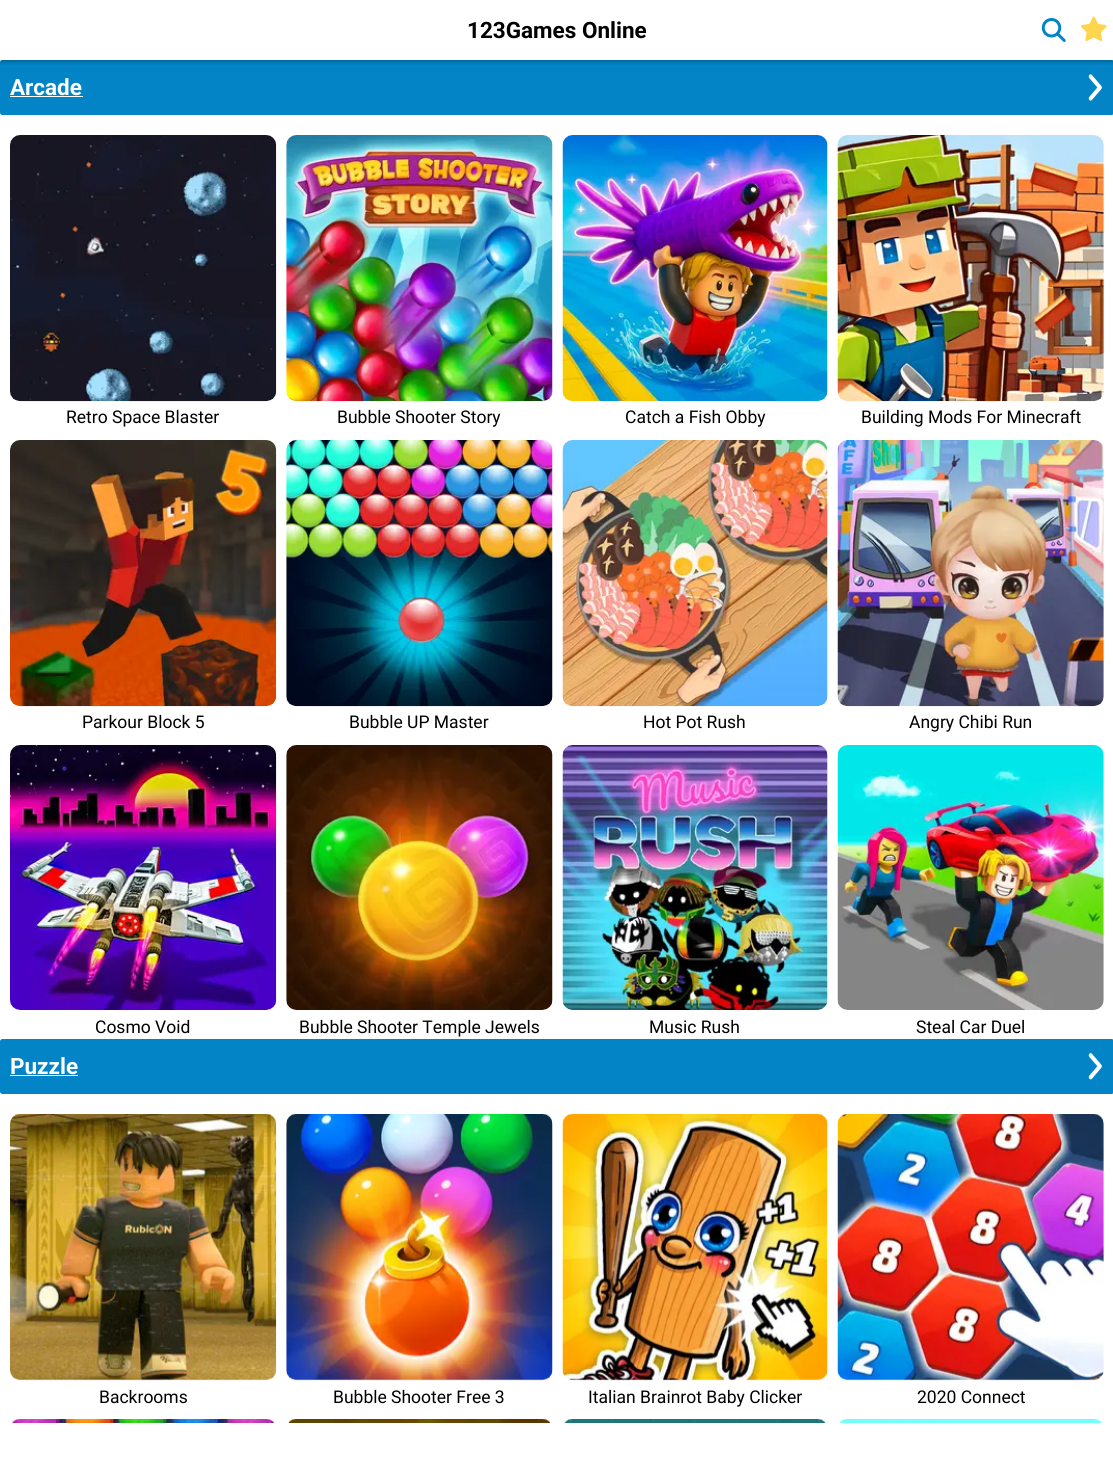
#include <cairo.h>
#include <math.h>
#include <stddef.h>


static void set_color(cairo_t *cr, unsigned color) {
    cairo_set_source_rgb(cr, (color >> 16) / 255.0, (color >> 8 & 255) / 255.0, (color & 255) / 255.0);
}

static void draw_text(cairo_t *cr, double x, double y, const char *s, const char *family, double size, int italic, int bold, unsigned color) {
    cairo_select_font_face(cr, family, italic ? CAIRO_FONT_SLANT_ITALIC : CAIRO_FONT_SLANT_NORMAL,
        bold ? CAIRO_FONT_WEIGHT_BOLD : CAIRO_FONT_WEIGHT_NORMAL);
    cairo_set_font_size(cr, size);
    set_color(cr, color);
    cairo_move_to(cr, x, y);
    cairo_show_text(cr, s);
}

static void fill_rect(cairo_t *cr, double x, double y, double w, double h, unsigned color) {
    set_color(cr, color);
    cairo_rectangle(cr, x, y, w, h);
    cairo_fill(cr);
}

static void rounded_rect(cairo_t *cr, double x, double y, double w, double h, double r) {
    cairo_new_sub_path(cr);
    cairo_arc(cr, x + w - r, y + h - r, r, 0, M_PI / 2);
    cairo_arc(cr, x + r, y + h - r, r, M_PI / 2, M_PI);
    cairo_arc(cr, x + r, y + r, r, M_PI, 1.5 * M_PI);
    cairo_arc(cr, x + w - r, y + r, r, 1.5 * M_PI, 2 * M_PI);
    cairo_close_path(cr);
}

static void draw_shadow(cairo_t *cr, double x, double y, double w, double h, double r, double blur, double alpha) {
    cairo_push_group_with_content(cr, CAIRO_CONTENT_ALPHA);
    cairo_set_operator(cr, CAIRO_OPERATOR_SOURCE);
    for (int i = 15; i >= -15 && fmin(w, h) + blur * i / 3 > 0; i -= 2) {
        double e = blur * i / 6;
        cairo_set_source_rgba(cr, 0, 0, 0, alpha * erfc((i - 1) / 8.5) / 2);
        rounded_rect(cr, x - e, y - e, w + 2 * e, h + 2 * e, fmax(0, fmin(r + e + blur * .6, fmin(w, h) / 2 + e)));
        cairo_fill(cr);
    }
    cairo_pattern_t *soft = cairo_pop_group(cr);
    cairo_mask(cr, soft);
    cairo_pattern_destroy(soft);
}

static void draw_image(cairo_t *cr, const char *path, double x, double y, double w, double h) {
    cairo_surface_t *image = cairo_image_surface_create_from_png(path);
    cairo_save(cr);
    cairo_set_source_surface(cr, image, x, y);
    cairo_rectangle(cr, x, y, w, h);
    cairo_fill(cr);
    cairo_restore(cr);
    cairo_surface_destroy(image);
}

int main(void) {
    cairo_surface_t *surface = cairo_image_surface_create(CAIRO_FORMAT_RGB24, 1113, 1484);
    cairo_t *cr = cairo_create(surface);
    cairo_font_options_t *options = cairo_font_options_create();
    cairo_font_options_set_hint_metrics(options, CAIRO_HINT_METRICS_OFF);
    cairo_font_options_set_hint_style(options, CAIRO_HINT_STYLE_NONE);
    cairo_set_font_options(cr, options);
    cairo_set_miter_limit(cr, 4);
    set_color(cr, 0xFFFFFF);
    cairo_paint(cr);
    set_color(cr, 0x0284C7);
    rounded_rect(cr, 0, 60, 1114, 55, 2.5);
    cairo_fill(cr);
    cairo_save(cr);
    cairo_rectangle(cr, 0, 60, 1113, 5);
    cairo_clip(cr);
    set_color(cr, 0x000000);
    draw_shadow(cr, 0, 1, 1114, 60, 0, 2.5, 0.35);
    cairo_restore(cr);
    draw_text(cr, 467, 38, "123Games Online", "Roboto", 22.5, 0, 1, 0x000000);
    draw_image(cr, "assets/img1.png", 1041, 18, 25, 24);
    draw_image(cr, "assets/img2.png", 1080, 16, 27, 26);
    draw_text(cr, 10, 95, "Arcade", "Roboto", 22.5, 0, 1, 0xFFFFFF);
    fill_rect(cr, 10, 96, 73, 1, 0xFFFFFF);
    draw_image(cr, "assets/img3.png", 1088, 74, 14, 27);
    draw_image(cr, "assets/img4.png", 10, 135, 267, 267);
    draw_text(cr, 66, 423, "Retro Space Blaster", "Roboto", 17.5, 0, 0, 0x000000);
    draw_image(cr, "assets/img5.png", 286, 135, 267, 267);
    draw_text(cr, 337, 423, "Bubble Shooter Story", "Roboto", 17.5, 0, 0, 0x000000);
    draw_image(cr, "assets/img6.png", 562, 135, 266, 267);
    draw_text(cr, 625, 423, "Catch a Fish Obby", "Roboto", 17.5, 0, 0, 0x000000);
    draw_image(cr, "assets/img7.png", 837, 135, 267, 267);
    draw_text(cr, 861, 423, "Building Mods For Minecraft", "Roboto", 17.5, 0, 0, 0x000000);
    draw_image(cr, "assets/img8.png", 10, 440, 267, 267);
    draw_text(cr, 82, 728, "Parkour Block 5", "Roboto", 17.5, 0, 0, 0x000000);
    draw_image(cr, "assets/img9.png", 286, 440, 267, 267);
    draw_text(cr, 349, 728, "Bubble UP Master", "Roboto", 17.5, 0, 0, 0x000000);
    draw_image(cr, "assets/img10.png", 562, 440, 266, 267);
    draw_text(cr, 643, 728, "Hot Pot Rush", "Roboto", 17.5, 0, 0, 0x000000);
    draw_image(cr, "assets/img11.png", 837, 440, 267, 267);
    draw_text(cr, 909, 728, "Angry Chibi Run", "Roboto", 17.5, 0, 0, 0x000000);
    draw_image(cr, "assets/img12.png", 10, 745, 267, 265);
    draw_text(cr, 95, 1033, "Cosmo Void", "Roboto", 17.5, 0, 0, 0x000000);
    draw_image(cr, "assets/img13.png", 286, 745, 267, 265);
    draw_text(cr, 299, 1033, "Bubble Shooter Temple Jewels", "Roboto", 17.5, 0, 0, 0x000000);
    draw_image(cr, "assets/img14.png", 562, 745, 266, 265);
    draw_text(cr, 649, 1033, "Music Rush", "Roboto", 17.5, 0, 0, 0x000000);
    draw_image(cr, "assets/img15.png", 837, 745, 267, 265);
    draw_text(cr, 916, 1033, "Steal Car Duel", "Roboto", 17.5, 0, 0, 0x000000);
    set_color(cr, 0x0284C7);
    rounded_rect(cr, 0, 1039, 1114, 55, 2.5);
    cairo_fill(cr);
    draw_text(cr, 10, 1074, "Puzzle", "Roboto", 22.5, 0, 1, 0xFFFFFF);
    fill_rect(cr, 10, 1075, 68, 1, 0xFFFFFF);
    draw_image(cr, "assets/img16.png", 1088, 1053, 14, 27);
    draw_image(cr, "assets/img17.png", 10, 1114, 267, 267);
    draw_text(cr, 99, 1403, "Backrooms", "Roboto", 17.5, 0, 0, 0x000000);
    draw_image(cr, "assets/img18.png", 286, 1114, 267, 267);
    draw_text(cr, 333, 1403, "Bubble Shooter Free 3", "Roboto", 17.5, 0, 0, 0x000000);
    draw_image(cr, "assets/img19.png", 562, 1114, 266, 267);
    draw_text(cr, 588, 1403, "Italian Brainrot Baby Clicker", "Roboto", 17.5, 0, 0, 0x000000);
    draw_image(cr, "assets/img20.png", 837, 1114, 267, 267);
    draw_text(cr, 917, 1403, "2020 Connect", "Roboto", 17.5, 0, 0, 0x000000);
    draw_image(cr, "assets/img21.png", 12, 1419, 262, 4);
    draw_image(cr, "assets/img22.png", 288, 1419, 263, 4);
    draw_image(cr, "assets/img23.png", 564, 1419, 262, 4);
    draw_image(cr, "assets/img24.png", 839, 1419, 263, 4);
    cairo_surface_write_to_png(surface, "output.png");
    cairo_font_options_destroy(options);
    cairo_destroy(cr);
    cairo_surface_destroy(surface);
    return 0;
}
